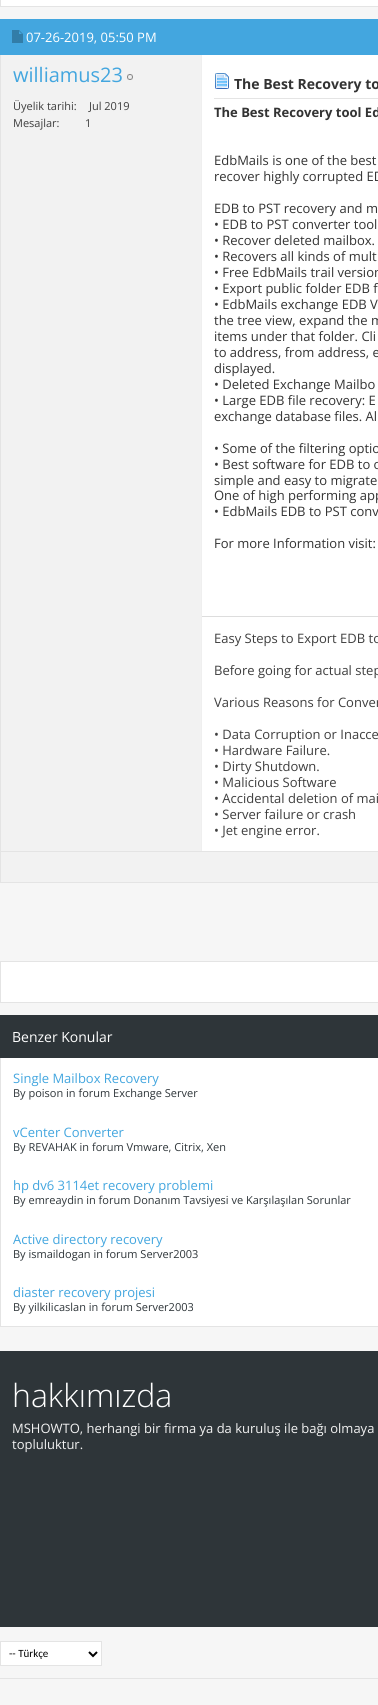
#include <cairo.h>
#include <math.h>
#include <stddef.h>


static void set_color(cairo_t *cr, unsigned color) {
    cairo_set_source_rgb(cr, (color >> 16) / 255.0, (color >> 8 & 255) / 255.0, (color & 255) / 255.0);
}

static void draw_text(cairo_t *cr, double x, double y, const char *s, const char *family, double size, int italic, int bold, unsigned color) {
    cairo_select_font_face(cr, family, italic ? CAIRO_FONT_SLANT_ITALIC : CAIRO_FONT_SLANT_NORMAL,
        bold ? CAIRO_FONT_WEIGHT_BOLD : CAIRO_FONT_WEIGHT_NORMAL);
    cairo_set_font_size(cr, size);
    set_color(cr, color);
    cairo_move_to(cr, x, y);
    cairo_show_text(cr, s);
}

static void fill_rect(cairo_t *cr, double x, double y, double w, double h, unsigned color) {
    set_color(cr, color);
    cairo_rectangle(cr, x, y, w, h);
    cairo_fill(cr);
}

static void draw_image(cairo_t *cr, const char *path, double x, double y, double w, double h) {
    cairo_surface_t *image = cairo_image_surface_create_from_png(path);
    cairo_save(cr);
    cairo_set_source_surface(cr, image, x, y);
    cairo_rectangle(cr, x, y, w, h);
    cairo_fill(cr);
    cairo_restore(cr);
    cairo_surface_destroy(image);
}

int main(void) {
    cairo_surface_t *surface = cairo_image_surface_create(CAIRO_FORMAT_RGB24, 378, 1705);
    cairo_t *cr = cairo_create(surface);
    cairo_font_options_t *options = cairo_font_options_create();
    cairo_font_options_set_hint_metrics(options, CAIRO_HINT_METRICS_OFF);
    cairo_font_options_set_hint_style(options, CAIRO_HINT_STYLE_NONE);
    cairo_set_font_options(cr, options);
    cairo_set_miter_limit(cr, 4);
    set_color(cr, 0xF6F6F6);
    cairo_paint(cr);
    set_color(cr, 0xFFFFFF);
    cairo_rectangle(cr, 0.5, -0.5, 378, 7);
    cairo_fill_preserve(cr);
    set_color(cr, 0xE4E4E4);
    cairo_set_line_width(cr, 1);
    cairo_stroke(cr);
    cairo_rectangle(cr, 0.5, 19.5, 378, 863);
    cairo_stroke(cr);
    fill_rect(cr, 0, 19, 378, 36, 0x43A6DF);
    draw_image(cr, "assets/img1.png", 12, 30, 11, 13);
    draw_text(cr, 26, 42, "07-26-2019, 05:50 PM", "Open Sans", 13, 0, 0, 0xFFFFFF);
    fill_rect(cr, 1, 55, 200, 796, 0xF2F2F2);
    draw_text(cr, 13, 82, "williamus23", "Open Sans", 20, 0, 0, 0x43A6DF);
    draw_image(cr, "assets/img2.png", 127, 74, 6, 6);
    draw_text(cr, 13, 110, "Üyelik tarihi:", "Open Sans", 11, 0, 0, 0x3E3E3E);
    draw_text(cr, 89, 110, "Jul 2019", "Open Sans", 11, 0, 0, 0x3E3E3E);
    draw_text(cr, 13, 127, "Mesajlar:", "Open Sans", 11, 0, 0, 0x3E3E3E);
    draw_text(cr, 85, 127, "1", "Open Sans", 11, 0, 0, 0x3E3E3E);
    fill_rect(cr, 202, 55, 176, 796, 0xFFFFFF);
    fill_rect(cr, 201, 55, 1, 796, 0xEFEFEF);
    fill_rect(cr, 214, 98, 164, 1, 0xE4E4E4);
    draw_image(cr, "assets/img3.png", 215, 73, 14, 16);
    draw_text(cr, 234, 89, "The Best Recovery to", "Open Sans", 14, 0, 1, 0x333333);
    draw_text(cr, 214, 117, "The Best Recovery tool Ed", "Open Sans", 13, 0, 1, 0x333333);
    draw_text(cr, 214, 165, "EdbMails is one of the best", "Open Sans", 13, 0, 0, 0x333333);
    draw_text(cr, 214, 181, "recover highly corrupted ED", "Open Sans", 13, 0, 0, 0x333333);
    draw_text(cr, 214, 213, "EDB to PST recovery and m", "Open Sans", 13, 0, 0, 0x333333);
    draw_text(cr, 214, 229, "• EDB to PST converter tool", "Open Sans", 13, 0, 0, 0x333333);
    draw_text(cr, 214, 245, "• Recover deleted mailbox.", "Open Sans", 13, 0, 0, 0x333333);
    draw_text(cr, 214, 261, "• Recovers all kinds of mult", "Open Sans", 13, 0, 0, 0x333333);
    draw_text(cr, 214, 277, "• Free EdbMails trail version", "Open Sans", 13, 0, 0, 0x333333);
    draw_text(cr, 214, 293, "• Export public folder EDB f", "Open Sans", 13, 0, 0, 0x333333);
    draw_text(cr, 214, 309, "• EdbMails exchange EDB V", "Open Sans", 13, 0, 0, 0x333333);
    draw_text(cr, 214, 325, "the tree view, expand the m", "Open Sans", 13, 0, 0, 0x333333);
    draw_text(cr, 214, 341, "items under that folder. Cli", "Open Sans", 13, 0, 0, 0x333333);
    draw_text(cr, 214, 357, "to address, from address, e", "Open Sans", 13, 0, 0, 0x333333);
    draw_text(cr, 214, 373, "displayed.", "Open Sans", 13, 0, 0, 0x333333);
    draw_text(cr, 214, 389, "• Deleted Exchange Mailbo", "Open Sans", 13, 0, 0, 0x333333);
    draw_text(cr, 214, 405, "• Large EDB file recovery: E", "Open Sans", 13, 0, 0, 0x333333);
    draw_text(cr, 214, 421, "exchange database files. Al", "Open Sans", 13, 0, 0, 0x333333);
    draw_text(cr, 214, 453, "• Some of the filtering optio", "Open Sans", 13, 0, 0, 0x333333);
    draw_text(cr, 214, 469, "• Best software for EDB to o", "Open Sans", 13, 0, 0, 0x333333);
    draw_text(cr, 214, 485, "simple and easy to migrate", "Open Sans", 13, 0, 0, 0x333333);
    draw_text(cr, 214, 500, "One of high performing app", "Open Sans", 13, 0, 0, 0x333333);
    draw_text(cr, 214, 516, "• EdbMails EDB to PST conv", "Open Sans", 13, 0, 0, 0x333333);
    draw_text(cr, 214, 548, "For more Information visit:", "Open Sans", 13, 0, 0, 0x333333);
    fill_rect(cr, 202, 616, 176, 1, 0xDDDDDD);
    draw_text(cr, 214, 643, "Easy Steps to Export EDB to", "Open Sans", 13, 0, 0, 0x3E3E3E);
    draw_text(cr, 214, 675, "Before going for actual step", "Open Sans", 13, 0, 0, 0x3E3E3E);
    draw_text(cr, 214, 707, "Various Reasons for Conver", "Open Sans", 13, 0, 0, 0x3E3E3E);
    draw_text(cr, 214, 739, "• Data Corruption or Inacce", "Open Sans", 13, 0, 0, 0x3E3E3E);
    draw_text(cr, 214, 755, "• Hardware Failure.", "Open Sans", 13, 0, 0, 0x3E3E3E);
    draw_text(cr, 214, 771, "• Dirty Shutdown.", "Open Sans", 13, 0, 0, 0x3E3E3E);
    draw_text(cr, 214, 787, "• Malicious Software", "Open Sans", 13, 0, 0, 0x3E3E3E);
    draw_text(cr, 214, 803, "• Accidental deletion of mai", "Open Sans", 13, 0, 0, 0x3E3E3E);
    draw_text(cr, 214, 819, "• Server failure or crash", "Open Sans", 13, 0, 0, 0x3E3E3E);
    draw_text(cr, 214, 835, "• Jet engine error.", "Open Sans", 13, 0, 0, 0x3E3E3E);
    fill_rect(cr, 1, 852, 377, 30, 0xF2F2F2);
    fill_rect(cr, 1, 851, 377, 1, 0xE4E4E4);
    set_color(cr, 0xFFFFFF);
    cairo_rectangle(cr, 0.5, 961.5, 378, 41);
    cairo_fill_preserve(cr);
    set_color(cr, 0xE4E4E4);
    cairo_stroke(cr);
    fill_rect(cr, 0, 1015, 378, 43, 0x2E3539);
    draw_text(cr, 12, 1042, "Benzer Konular", "Open Sans", 14, 0, 0, 0xFFFFFF);
    fill_rect(cr, 1, 1058, 377, 268, 0xFFFFFF);
    fill_rect(cr, 0, 1326, 378, 1, 0xE4E4E4);
    fill_rect(cr, 0, 1058, 1, 269, 0xE4E4E4);
    draw_text(cr, 13, 1083, "Single Mailbox Recovery", "Open Sans", 13, 0, 0, 0x43A6DF);
    draw_text(cr, 13, 1097, "By poison in forum Exchange Server", "Open Sans", 11, 0, 0, 0x2E3539);
    draw_text(cr, 13, 1137, "vCenter Converter", "Open Sans", 13, 0, 0, 0x43A6DF);
    draw_text(cr, 13, 1151, "By REVAHAK in forum Vmware, Citrix, Xen", "Open Sans", 11, 0, 0, 0x2E3539);
    draw_text(cr, 13, 1190, "hp dv6 3114et recovery problemi", "Open Sans", 13, 0, 0, 0x43A6DF);
    draw_text(cr, 13, 1204, "By emreaydin in forum Donanım Tavsiyesi ve Karşılaşılan Sorunlar", "Open Sans", 11, 0, 0, 0x2E3539);
    draw_text(cr, 13, 1244, "Active directory recovery", "Open Sans", 13, 0, 0, 0x43A6DF);
    draw_text(cr, 13, 1258, "By ismaildogan in forum Server2003", "Open Sans", 11, 0, 0, 0x2E3539);
    draw_text(cr, 13, 1297, "diaster recovery projesi", "Open Sans", 13, 0, 0, 0x43A6DF);
    draw_text(cr, 13, 1311, "By yilkilicaslan in forum Server2003", "Open Sans", 11, 0, 0, 0x2E3539);
    fill_rect(cr, 0, 1351, 378, 276, 0x2E3539);
    draw_text(cr, 12, 1407, "hakkımızda", "Open Sans Light", 32, 0, 0, 0xFFFFFF);
    draw_text(cr, 12, 1433, "MSHOWTO, herhangi bir firma ya da kuruluş ile bağı olmaya", "Open Sans", 13, 0, 0, 0xF2F2F2);
    draw_text(cr, 12, 1449, "topluluktur.", "Open Sans", 13, 0, 0, 0xF2F2F2);
    fill_rect(cr, 0, 1678, 378, 1, 0xE4E4E4);
    set_color(cr, 0xFFFFFF);
    cairo_rectangle(cr, 0.5, 1641.5, 101, 24);
    cairo_fill_preserve(cr);
    set_color(cr, 0xE4E4E4);
    cairo_stroke(cr);
    cairo_new_path(cr);
    cairo_move_to(cr, 89, 1652);
    cairo_line_to(cr, 93, 1656);
    cairo_line_to(cr, 97, 1652);
    set_color(cr, 0x000000);
    cairo_set_line_width(cr, 2);
    cairo_stroke(cr);
    draw_text(cr, 9, 1657, "-- Türkçe", "Carlito", 11, 0, 0, 0x000000);
    cairo_surface_write_to_png(surface, "output.png");
    cairo_font_options_destroy(options);
    cairo_destroy(cr);
    cairo_surface_destroy(surface);
    return 0;
}
